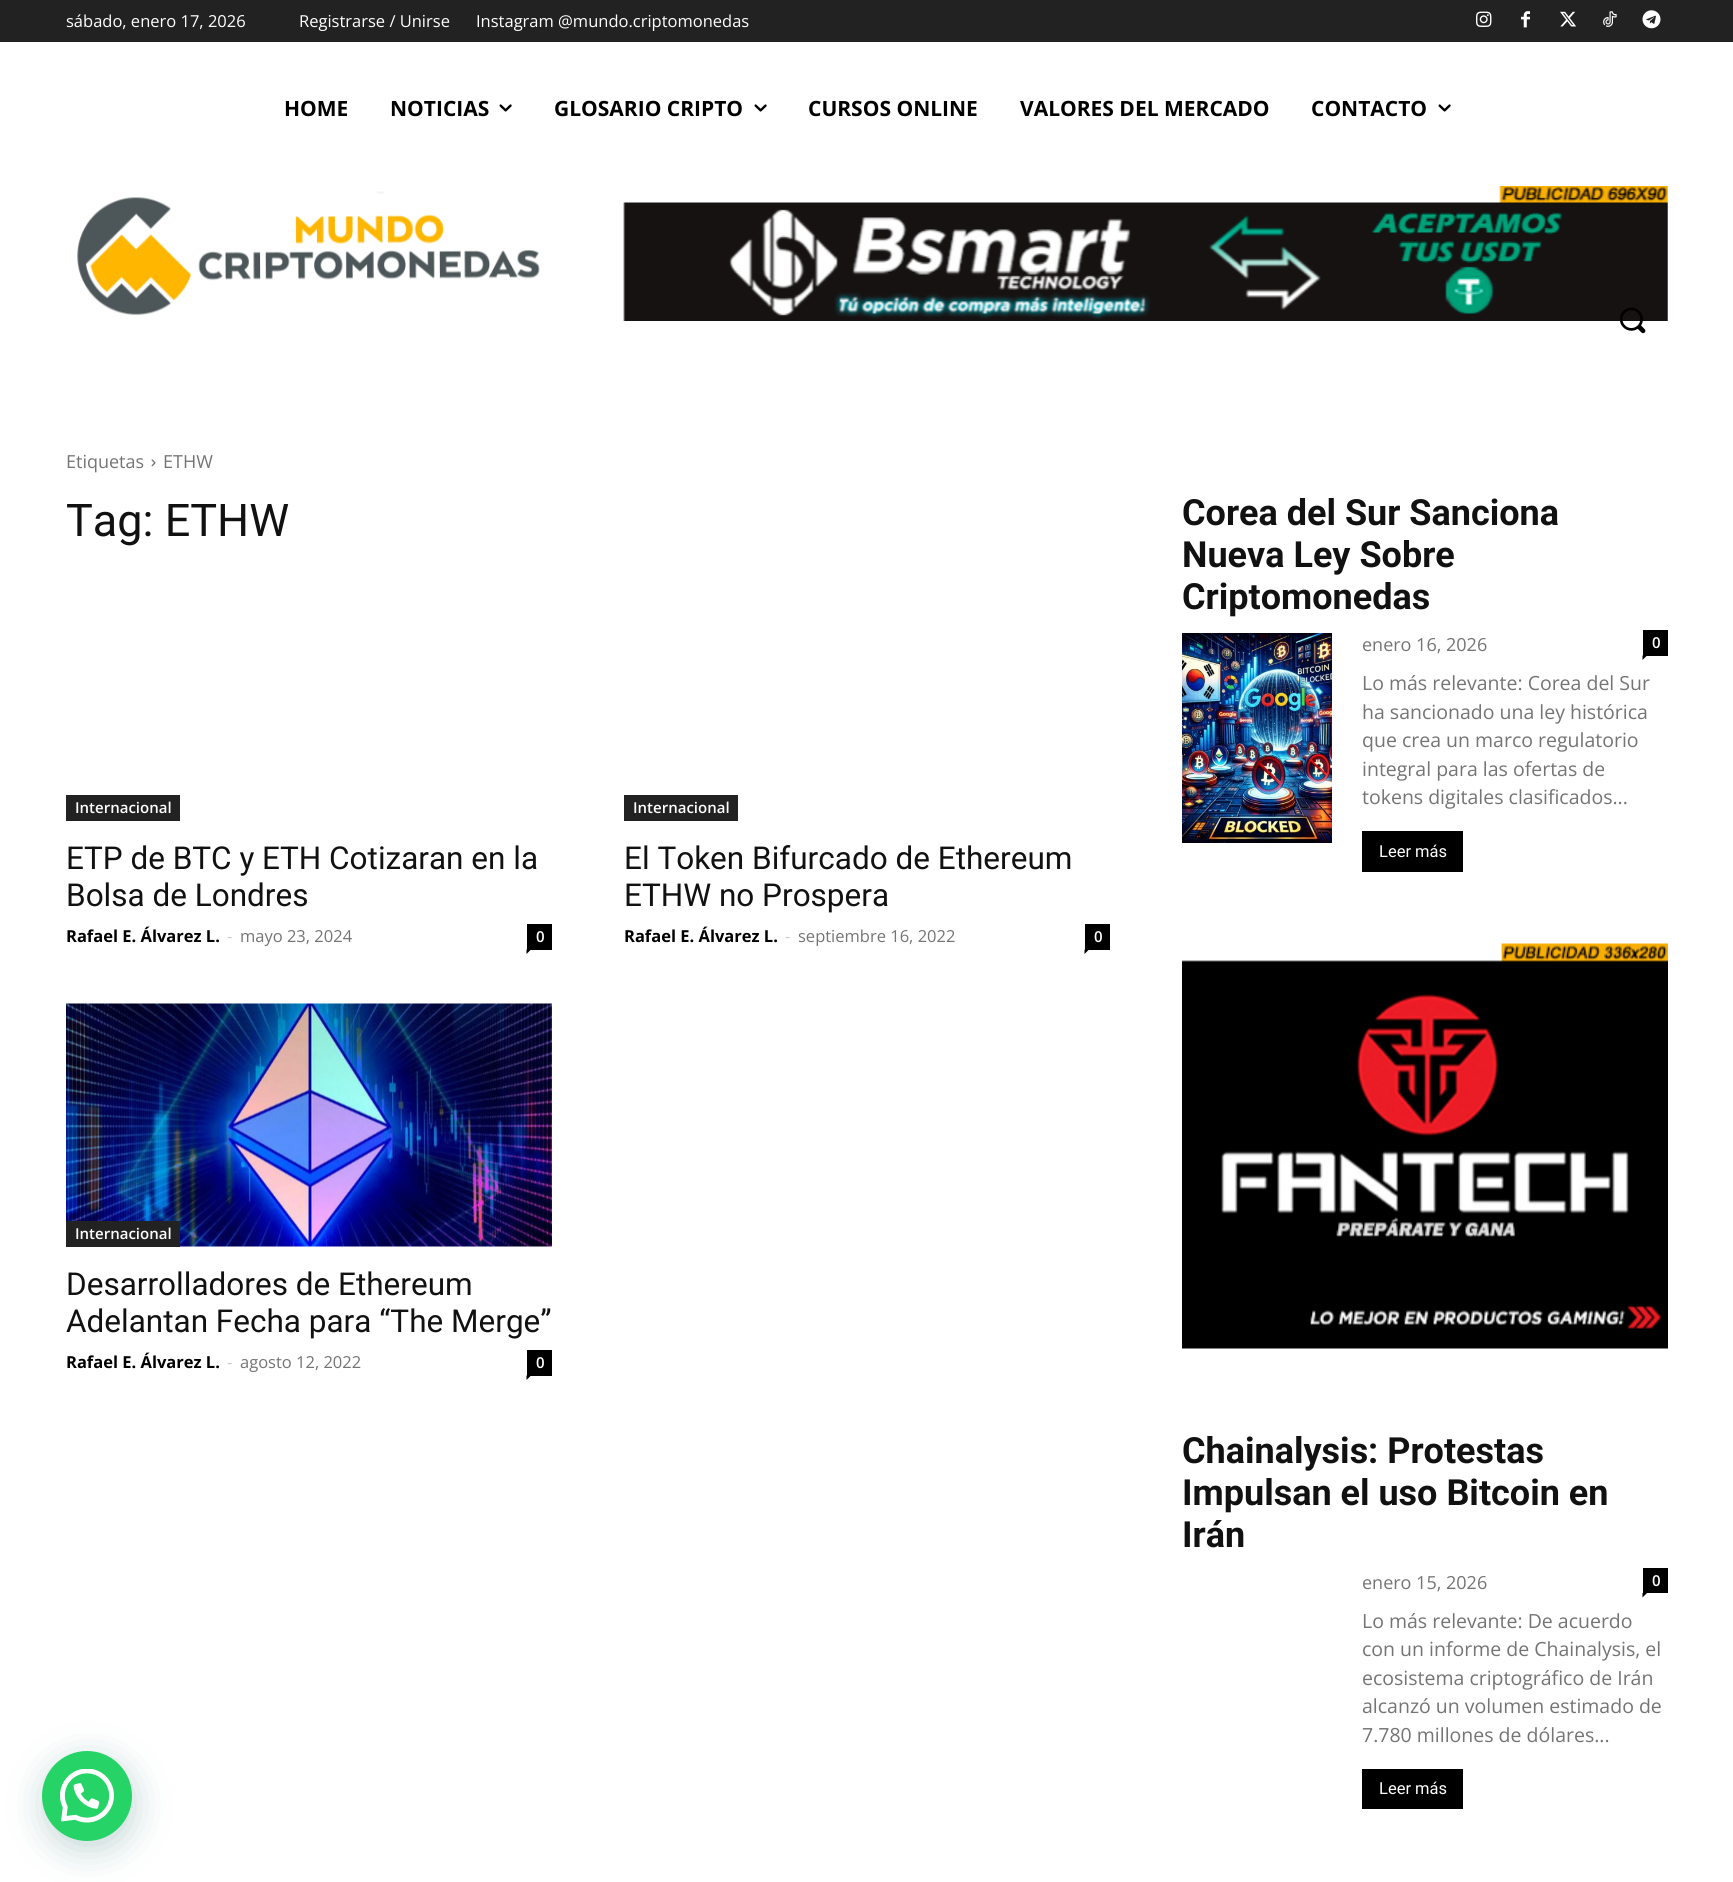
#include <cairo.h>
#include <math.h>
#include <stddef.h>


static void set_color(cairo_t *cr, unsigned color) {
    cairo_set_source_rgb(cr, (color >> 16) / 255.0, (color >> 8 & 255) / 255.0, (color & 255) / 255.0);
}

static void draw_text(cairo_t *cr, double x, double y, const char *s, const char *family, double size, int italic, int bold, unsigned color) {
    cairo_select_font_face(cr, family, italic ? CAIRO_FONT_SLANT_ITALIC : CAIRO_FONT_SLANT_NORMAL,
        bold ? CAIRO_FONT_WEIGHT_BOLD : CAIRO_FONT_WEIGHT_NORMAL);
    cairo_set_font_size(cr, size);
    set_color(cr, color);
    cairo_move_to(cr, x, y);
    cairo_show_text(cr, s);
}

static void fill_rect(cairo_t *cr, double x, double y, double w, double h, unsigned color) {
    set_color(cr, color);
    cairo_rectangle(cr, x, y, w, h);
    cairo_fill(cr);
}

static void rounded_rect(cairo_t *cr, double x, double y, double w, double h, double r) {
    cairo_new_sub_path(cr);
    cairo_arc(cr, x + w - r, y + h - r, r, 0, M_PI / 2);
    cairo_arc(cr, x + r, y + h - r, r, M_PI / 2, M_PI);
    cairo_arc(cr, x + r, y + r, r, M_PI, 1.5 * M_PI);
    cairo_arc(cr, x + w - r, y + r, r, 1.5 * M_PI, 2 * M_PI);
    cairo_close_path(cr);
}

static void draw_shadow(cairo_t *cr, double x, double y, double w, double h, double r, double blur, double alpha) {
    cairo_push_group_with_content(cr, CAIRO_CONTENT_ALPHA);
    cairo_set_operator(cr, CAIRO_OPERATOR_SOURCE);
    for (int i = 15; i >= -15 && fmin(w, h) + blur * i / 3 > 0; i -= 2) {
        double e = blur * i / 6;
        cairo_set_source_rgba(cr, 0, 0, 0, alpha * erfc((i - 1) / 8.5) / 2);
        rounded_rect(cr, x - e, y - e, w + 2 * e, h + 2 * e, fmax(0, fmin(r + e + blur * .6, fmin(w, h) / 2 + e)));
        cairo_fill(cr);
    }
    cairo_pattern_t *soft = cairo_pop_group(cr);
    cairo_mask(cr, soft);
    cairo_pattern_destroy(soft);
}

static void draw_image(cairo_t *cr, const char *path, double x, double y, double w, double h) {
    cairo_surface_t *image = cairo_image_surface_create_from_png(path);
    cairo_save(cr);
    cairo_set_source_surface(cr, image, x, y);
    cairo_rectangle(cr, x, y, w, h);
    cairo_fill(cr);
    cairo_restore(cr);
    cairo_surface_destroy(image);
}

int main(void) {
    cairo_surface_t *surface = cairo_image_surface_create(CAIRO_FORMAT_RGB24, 1733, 1882);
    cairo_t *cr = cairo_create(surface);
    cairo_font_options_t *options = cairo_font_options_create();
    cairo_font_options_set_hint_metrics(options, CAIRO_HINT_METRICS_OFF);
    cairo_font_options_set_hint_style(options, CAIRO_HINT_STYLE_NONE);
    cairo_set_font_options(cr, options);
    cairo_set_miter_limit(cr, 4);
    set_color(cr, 0xFFFFFF);
    cairo_paint(cr);
    fill_rect(cr, 0, 0, 1733, 42, 0x222222);
    draw_text(cr, 66, 27, "sábado, enero 17, 2026", "Open Sans", 16.5, 0, 0, 0xFFFFFF);
    draw_text(cr, 299, 27, "Registrarse / Unirse", "Open Sans", 16.5, 0, 0, 0xFFFFFF);
    draw_text(cr, 476, 27, "Instagram @mundo.criptomonedas", "Open Sans", 16.5, 0, 0, 0xFFFFFF);
    draw_image(cr, "assets/img1.png", 1476, 11, 16, 16);
    draw_image(cr, "assets/img2.png", 1521, 11, 9, 17);
    draw_image(cr, "assets/img3.png", 1560, 11, 16, 16);
    draw_image(cr, "assets/img4.png", 1603, 11, 14, 16);
    draw_image(cr, "assets/img5.png", 1642, 10, 19, 19);
    draw_text(cr, 284, 116, "HOME", "Open Sans", 21, 0, 1, 0x000000);
    draw_text(cr, 390, 116, "NOTICIAS", "Open Sans", 21, 0, 1, 0x000000);
    draw_image(cr, "assets/img6.png", 499, 104, 13, 8);
    draw_text(cr, 554, 116, "GLOSARIO CRIPTO", "Open Sans", 21, 0, 1, 0x000000);
    draw_image(cr, "assets/img6.png", 754, 104, 13, 8);
    draw_text(cr, 808, 116, "CURSOS ONLINE", "Open Sans", 21, 0, 1, 0x000000);
    draw_text(cr, 1020, 116, "VALORES DEL MERCADO", "Open Sans", 21, 0, 1, 0x000000);
    draw_text(cr, 1311, 116, "CONTACTO", "Open Sans", 21, 0, 1, 0x000000);
    draw_image(cr, "assets/img6.png", 1438, 104, 13, 8);
    draw_image(cr, "assets/img7.png", 77, 191, 463, 125);
    draw_image(cr, "assets/img8.png", 623, 186, 1045, 135);
    draw_image(cr, "assets/img9.png", 1620, 307, 26, 27);
    draw_text(cr, 66, 468, "Etiquetas", "Open Sans", 18, 0, 0, 0x747474);
    draw_image(cr, "assets/img10.png", 151, 459, 5, 8);
    draw_text(cr, 163, 468, "ETHW", "Open Sans", 18, 0, 0, 0x747474);
    draw_text(cr, 66, 536, "Tag: ETHW", "Roboto", 45, 0, 0, 0x111111);
    fill_rect(cr, 66, 795, 114, 26, 0x222222);
    draw_text(cr, 75, 813, "Internacional", "Open Sans SemiBold", 15, 0, 0, 0xFFFFFF);
    draw_text(cr, 66, 869, "ETP de BTC y ETH Cotizaran en la", "Roboto", 31.5, 0, 0, 0x111111);
    draw_text(cr, 66, 906, "Bolsa de Londres", "Roboto", 31.5, 0, 0, 0x111111);
    draw_text(cr, 66, 942, "Rafael E. Álvarez L.", "Open Sans", 16.5, 0, 1, 0x000000);
    draw_text(cr, 227, 942, "-", "Open Sans", 16.5, 0, 0, 0xCCCCCC);
    draw_text(cr, 240, 942, "mayo 23, 2024", "Open Sans", 16.5, 0, 0, 0x747474);
    fill_rect(cr, 527, 924, 25, 26, 0x000000);
    draw_text(cr, 536, 942, "0", "Open Sans SemiBold", 15, 0, 0, 0xFFFFFF);
    set_color(cr, 0x000000);
    cairo_new_path(cr);
    cairo_move_to(cr, 526.5, 949.5);
    cairo_line_to(cr, 531, 949.5);
    cairo_line_to(cr, 526.5, 954);
    cairo_close_path(cr);
    cairo_fill(cr);
    fill_rect(cr, 624, 795, 114, 26, 0x222222);
    draw_text(cr, 633, 813, "Internacional", "Open Sans SemiBold", 15, 0, 0, 0xFFFFFF);
    draw_text(cr, 624, 869, "El Token Bifurcado de Ethereum", "Roboto", 31.5, 0, 0, 0x111111);
    draw_text(cr, 624, 906, "ETHW no Prospera", "Roboto", 31.5, 0, 0, 0x111111);
    draw_text(cr, 624, 942, "Rafael E. Álvarez L.", "Open Sans", 16.5, 0, 1, 0x000000);
    draw_text(cr, 785, 942, "-", "Open Sans", 16.5, 0, 0, 0xCCCCCC);
    draw_text(cr, 798, 942, "septiembre 16, 2022", "Open Sans", 16.5, 0, 0, 0x747474);
    fill_rect(cr, 1085, 924, 25, 26, 0x000000);
    draw_text(cr, 1094, 942, "0", "Open Sans SemiBold", 15, 0, 0, 0xFFFFFF);
    set_color(cr, 0x000000);
    cairo_new_path(cr);
    cairo_move_to(cr, 1084.5, 949.5);
    cairo_line_to(cr, 1089, 949.5);
    cairo_line_to(cr, 1084.5, 954);
    cairo_close_path(cr);
    cairo_fill(cr);
    draw_image(cr, "assets/img11.png", 66, 1003, 486, 244);
    fill_rect(cr, 66, 1221, 114, 26, 0x222222);
    draw_text(cr, 75, 1239, "Internacional", "Open Sans SemiBold", 15, 0, 0, 0xFFFFFF);
    draw_text(cr, 66, 1295, "Desarrolladores de Ethereum", "Roboto", 31.5, 0, 0, 0x111111);
    draw_text(cr, 66, 1332, "Adelantan Fecha para “The Merge”", "Roboto", 31.5, 0, 0, 0x111111);
    draw_text(cr, 66, 1368, "Rafael E. Álvarez L.", "Open Sans", 16.5, 0, 1, 0x000000);
    draw_text(cr, 227, 1368, "-", "Open Sans", 16.5, 0, 0, 0xCCCCCC);
    draw_text(cr, 240, 1368, "agosto 12, 2022", "Open Sans", 16.5, 0, 0, 0x747474);
    fill_rect(cr, 527, 1350, 25, 26, 0x000000);
    draw_text(cr, 536, 1368, "0", "Open Sans SemiBold", 15, 0, 0, 0xFFFFFF);
    set_color(cr, 0x000000);
    cairo_new_path(cr);
    cairo_move_to(cr, 526.5, 1375.5);
    cairo_line_to(cr, 531, 1375.5);
    cairo_line_to(cr, 526.5, 1380);
    cairo_close_path(cr);
    cairo_fill(cr);
    draw_text(cr, 1182, 525, "Corea del Sur Sanciona", "Roboto", 36, 0, 1, 0x111111);
    draw_text(cr, 1182, 567, "Nueva Ley Sobre", "Roboto", 36, 0, 1, 0x111111);
    draw_text(cr, 1182, 609, "Criptomonedas", "Roboto", 36, 0, 1, 0x111111);
    draw_image(cr, "assets/img12.png", 1182, 633, 150, 210);
    draw_text(cr, 1362, 651, "enero 16, 2026", "Open Sans", 18, 0, 0, 0x747474);
    fill_rect(cr, 1643, 630, 25, 26, 0x000000);
    draw_text(cr, 1652, 648, "0", "Open Sans SemiBold", 15, 0, 0, 0xFFFFFF);
    set_color(cr, 0x000000);
    cairo_new_path(cr);
    cairo_move_to(cr, 1642.5, 655.5);
    cairo_line_to(cr, 1647, 655.5);
    cairo_line_to(cr, 1642.5, 660);
    cairo_close_path(cr);
    cairo_fill(cr);
    draw_text(cr, 1362, 690, "Lo más relevante: Corea del Sur", "Open Sans", 19.5, 0, 0, 0x747474);
    draw_text(cr, 1362, 719, "ha sancionado una ley histórica", "Open Sans", 19.5, 0, 0, 0x747474);
    draw_text(cr, 1362, 747, "que crea un marco regulatorio", "Open Sans", 19.5, 0, 0, 0x747474);
    draw_text(cr, 1362, 776, "integral para las ofertas de", "Open Sans", 19.5, 0, 0, 0x747474);
    draw_text(cr, 1362, 804, "tokens digitales clasificados...", "Open Sans", 19.5, 0, 0, 0x747474);
    fill_rect(cr, 1362, 831, 101, 41, 0x000000);
    draw_text(cr, 1379, 857, "Leer más", "Roboto", 16.5, 0, 0, 0xFFFFFF);
    draw_image(cr, "assets/img13.png", 1182, 943, 486, 406);
    draw_text(cr, 1182, 1463, "Chainalysis: Protestas", "Roboto", 36, 0, 1, 0x111111);
    draw_text(cr, 1182, 1505, "Impulsan el uso Bitcoin en", "Roboto", 36, 0, 1, 0x111111);
    draw_text(cr, 1182, 1547, "Irán", "Roboto", 36, 0, 1, 0x111111);
    draw_text(cr, 1362, 1589, "enero 15, 2026", "Open Sans", 18, 0, 0, 0x747474);
    fill_rect(cr, 1643, 1568, 25, 25, 0x000000);
    draw_text(cr, 1652, 1586, "0", "Open Sans SemiBold", 15, 0, 0, 0xFFFFFF);
    set_color(cr, 0x000000);
    cairo_new_path(cr);
    cairo_move_to(cr, 1642.5, 1593);
    cairo_line_to(cr, 1647, 1593);
    cairo_line_to(cr, 1642.5, 1597.5);
    cairo_close_path(cr);
    cairo_fill(cr);
    draw_text(cr, 1362, 1628, "Lo más relevante: De acuerdo", "Open Sans", 19.5, 0, 0, 0x747474);
    draw_text(cr, 1362, 1656, "con un informe de Chainalysis, el", "Open Sans", 19.5, 0, 0, 0x747474);
    draw_text(cr, 1362, 1685, "ecosistema criptográfico de Irán", "Open Sans", 19.5, 0, 0, 0x747474);
    draw_text(cr, 1362, 1713, "alcanzó un volumen estimado de", "Open Sans", 19.5, 0, 0, 0x747474);
    draw_text(cr, 1362, 1742, "7.780 millones de dólares...", "Open Sans", 19.5, 0, 0, 0x747474);
    fill_rect(cr, 1362, 1769, 101, 40, 0x000000);
    draw_text(cr, 1379, 1794, "Leer más", "Roboto", 16.5, 0, 0, 0xFFFFFF);
    set_color(cr, 0x075E54);
    draw_shadow(cr, 44, 1760, 90, 90, 45, 18, 0.24);
    set_color(cr, 0x25D366);
    cairo_arc(cr, 87, 1796, 45, 0, 2 * M_PI);
    cairo_fill(cr);
    draw_image(cr, "assets/img14.png", 60, 1769, 54, 54);
    cairo_surface_write_to_png(surface, "output.png");
    cairo_font_options_destroy(options);
    cairo_destroy(cr);
    cairo_surface_destroy(surface);
    return 0;
}
